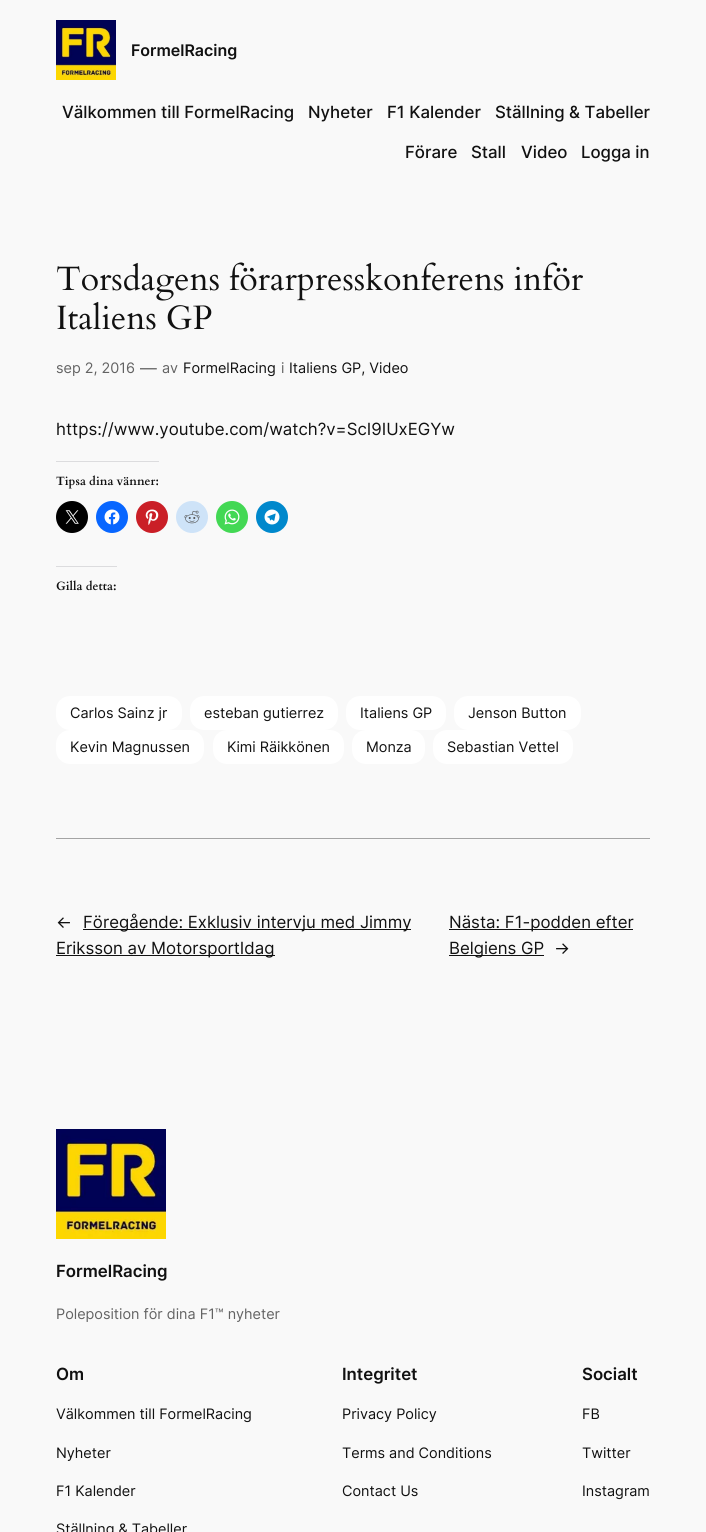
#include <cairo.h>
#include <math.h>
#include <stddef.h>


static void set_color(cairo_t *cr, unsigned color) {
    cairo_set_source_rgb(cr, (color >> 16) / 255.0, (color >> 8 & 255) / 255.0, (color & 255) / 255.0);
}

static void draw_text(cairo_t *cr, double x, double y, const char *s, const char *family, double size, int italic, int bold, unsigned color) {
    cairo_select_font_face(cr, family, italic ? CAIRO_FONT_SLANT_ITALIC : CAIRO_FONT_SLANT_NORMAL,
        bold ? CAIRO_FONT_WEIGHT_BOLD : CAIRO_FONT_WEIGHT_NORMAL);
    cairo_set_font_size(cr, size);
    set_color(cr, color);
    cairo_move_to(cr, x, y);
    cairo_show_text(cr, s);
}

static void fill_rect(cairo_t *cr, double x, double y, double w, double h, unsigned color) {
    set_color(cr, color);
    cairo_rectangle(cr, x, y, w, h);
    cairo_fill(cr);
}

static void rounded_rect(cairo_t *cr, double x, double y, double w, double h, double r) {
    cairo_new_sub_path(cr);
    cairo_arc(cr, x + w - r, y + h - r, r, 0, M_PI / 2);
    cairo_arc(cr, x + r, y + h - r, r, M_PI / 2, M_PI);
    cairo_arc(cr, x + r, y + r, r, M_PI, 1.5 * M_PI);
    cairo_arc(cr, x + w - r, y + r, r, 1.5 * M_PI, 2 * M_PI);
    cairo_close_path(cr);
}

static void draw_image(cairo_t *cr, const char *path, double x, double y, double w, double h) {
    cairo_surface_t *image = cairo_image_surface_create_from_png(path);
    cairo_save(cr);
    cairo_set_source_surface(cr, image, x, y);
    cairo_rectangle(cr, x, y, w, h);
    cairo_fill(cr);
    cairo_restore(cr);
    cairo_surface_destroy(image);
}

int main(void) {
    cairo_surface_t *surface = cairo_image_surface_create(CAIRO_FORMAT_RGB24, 706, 1532);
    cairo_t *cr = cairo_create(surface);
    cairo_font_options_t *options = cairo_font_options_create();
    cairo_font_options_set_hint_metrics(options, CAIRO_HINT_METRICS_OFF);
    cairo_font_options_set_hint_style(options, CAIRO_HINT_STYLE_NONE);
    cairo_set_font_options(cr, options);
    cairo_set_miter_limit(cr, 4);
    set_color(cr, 0xF9F9F9);
    cairo_paint(cr);
    draw_image(cr, "assets/img1.png", 56, 20, 60, 60);
    draw_text(cr, 131, 56, "FormelRacing", "Inter SemiBold", 16, 0, 0, 0x111111);
    draw_text(cr, 62, 118, "Välkommen till FormelRacing", "Inter Medium", 16.8, 0, 0, 0x111111);
    draw_text(cr, 308, 118, "Nyheter", "Inter Medium", 16.8, 0, 0, 0x111111);
    draw_text(cr, 387, 118, "F1 Kalender", "Inter Medium", 16.8, 0, 0, 0x111111);
    draw_text(cr, 495, 118, "Ställning & Tabeller", "Inter Medium", 16.8, 0, 0, 0x111111);
    draw_text(cr, 405, 158, "Förare", "Inter Medium", 16.8, 0, 0, 0x111111);
    draw_text(cr, 471, 158, "Stall", "Inter Medium", 16.8, 0, 0, 0x111111);
    draw_text(cr, 521, 158, "Video", "Inter Medium", 16.8, 0, 0, 0x111111);
    draw_text(cr, 581, 158, "Logga in", "Inter Medium", 16.8, 0, 0, 0x111111);
    draw_image(cr, "assets/img2.png", 57, 262, 526, 39);
    draw_image(cr, "assets/img3.png", 57, 301, 155, 29);
    draw_text(cr, 56, 373, "sep 2, 2016", "Inter", 14.4, 0, 0, 0x636363);
    draw_text(cr, 140, 374, "—", "Inter", 16.8, 0, 0, 0x636363);
    draw_text(cr, 162, 373, "av", "Inter", 14.4, 0, 0, 0x636363);
    draw_text(cr, 183, 373, "FormelRacing", "Inter", 14.4, 0, 0, 0x111111);
    draw_text(cr, 281, 373, "i", "Inter", 14.4, 0, 0, 0x636363);
    draw_text(cr, 289, 373, "Italiens GP, Video", "Inter", 14.4, 0, 0, 0x111111);
    draw_text(cr, 56, 435, "https://www.youtube.com/watch?v=ScI9IUxEGYw", "Inter", 16.8, 0, 0, 0x111111);
    fill_rect(cr, 56, 461, 103, 1, 0xDCDCDE);
    draw_text(cr, 56, 485, "Tipsa dina vänner:", "Cardo", 12, 0, 1, 0x111111);
    set_color(cr, 0x000000);
    cairo_new_path(cr);
    cairo_arc(cr, 72, 517, 16, 0, 2 * M_PI);
    cairo_fill(cr);
    draw_image(cr, "assets/img4.png", 65, 510, 14, 14);
    set_color(cr, 0x0866FF);
    cairo_arc(cr, 112, 517, 16, 0, 2 * M_PI);
    cairo_fill(cr);
    draw_image(cr, "assets/img5.png", 104, 509, 16, 16);
    set_color(cr, 0xCA1F27);
    cairo_arc(cr, 152, 517, 16, 0, 2 * M_PI);
    cairo_fill(cr);
    draw_image(cr, "assets/img6.png", 145, 509, 14, 16);
    set_color(cr, 0xCEE3F8);
    cairo_arc(cr, 192, 517, 16, 0, 2 * M_PI);
    cairo_fill(cr);
    draw_image(cr, "assets/img7.png", 184, 510, 16, 14);
    set_color(cr, 0x43D854);
    cairo_arc(cr, 232, 517, 16, 0, 2 * M_PI);
    cairo_fill(cr);
    draw_image(cr, "assets/img8.png", 224, 509, 16, 16);
    set_color(cr, 0x0088CC);
    cairo_arc(cr, 272, 517, 16, 0, 2 * M_PI);
    cairo_fill(cr);
    draw_image(cr, "assets/img9.png", 264, 509, 16, 16);
    fill_rect(cr, 56, 566, 61, 1, 0xDCDCDE);
    draw_text(cr, 56, 590, "Gilla detta:", "Cardo", 12, 0, 1, 0x111111);
    set_color(cr, 0xFFFFFF);
    rounded_rect(cr, 56, 696, 126, 34, 14);
    cairo_fill(cr);
    draw_text(cr, 70, 718, "Carlos Sainz jr", "Inter", 14.4, 0, 0, 0x111111);
    set_color(cr, 0xFFFFFF);
    rounded_rect(cr, 190, 696, 148, 34, 14);
    cairo_fill(cr);
    draw_text(cr, 204, 718, "esteban gutierrez", "Inter", 14.4, 0, 0, 0x111111);
    set_color(cr, 0xFFFFFF);
    rounded_rect(cr, 346, 696, 100, 34, 14);
    cairo_fill(cr);
    draw_text(cr, 360, 718, "Italiens GP", "Inter", 14.4, 0, 0, 0x111111);
    set_color(cr, 0xFFFFFF);
    rounded_rect(cr, 454, 696, 127, 34, 14);
    cairo_fill(cr);
    draw_text(cr, 468, 718, "Jenson Button", "Inter", 14.4, 0, 0, 0x111111);
    set_color(cr, 0xFFFFFF);
    rounded_rect(cr, 56, 730, 148, 34, 14);
    cairo_fill(cr);
    draw_text(cr, 70, 752, "Kevin Magnussen", "Inter", 14.4, 0, 0, 0x111111);
    set_color(cr, 0xFFFFFF);
    rounded_rect(cr, 213, 730, 131, 34, 14);
    cairo_fill(cr);
    draw_text(cr, 227, 752, "Kimi Räikkönen", "Inter", 14.4, 0, 0, 0x111111);
    set_color(cr, 0xFFFFFF);
    rounded_rect(cr, 352, 730, 73, 34, 14);
    cairo_fill(cr);
    draw_text(cr, 366, 752, "Monza", "Inter", 14.4, 0, 0, 0x111111);
    set_color(cr, 0xFFFFFF);
    rounded_rect(cr, 433, 730, 140, 34, 14);
    cairo_fill(cr);
    draw_text(cr, 447, 752, "Sebastian Vettel", "Inter", 14.4, 0, 0, 0x111111);
    fill_rect(cr, 56, 838, 594, 1, 0xA4A4A4);
    draw_text(cr, 56, 928, "←", "Inter", 16.8, 0, 0, 0x111111);
    fill_rect(cr, 83, 929, 328, 1, 0x111111);
    draw_text(cr, 83, 928, "Föregående: Exklusiv intervju med Jimmy", "Inter", 16.8, 0, 0, 0x111111);
    fill_rect(cr, 56, 955, 219, 1, 0x111111);
    draw_text(cr, 56, 954, "Eriksson av MotorsportIdag", "Inter", 16.8, 0, 0, 0x111111);
    fill_rect(cr, 449, 929, 184, 1, 0x111111);
    draw_text(cr, 449, 928, "Nästa: F1-podden efter", "Inter", 16.8, 0, 0, 0x111111);
    fill_rect(cr, 449, 955, 95, 1, 0x111111);
    draw_text(cr, 449, 954, "Belgiens GP", "Inter", 16.8, 0, 0, 0x111111);
    draw_text(cr, 554, 954, "→", "Inter", 16.8, 0, 0, 0x111111);
    draw_image(cr, "assets/img10.png", 56, 1129, 110, 110);
    draw_text(cr, 56, 1277, "FormelRacing", "Inter SemiBold", 16.8, 0, 0, 0x111111);
    draw_text(cr, 56, 1319, "Poleposition för dina F1™ nyheter", "Inter", 14.4, 0, 0, 0x636363);
    draw_text(cr, 56, 1380, "Om", "Inter SemiBold", 16.8, 0, 0, 0x111111);
    draw_text(cr, 56, 1419, "Välkommen till FormelRacing", "Inter", 14.4, 0, 0, 0x111111);
    draw_text(cr, 56, 1458, "Nyheter", "Inter", 14.4, 0, 0, 0x111111);
    draw_text(cr, 56, 1496, "F1 Kalender", "Inter", 14.4, 0, 0, 0x111111);
    draw_text(cr, 56, 1534, "Ställning & Tabeller", "Inter", 14.4, 0, 0, 0x111111);
    draw_text(cr, 342, 1380, "Integritet", "Inter SemiBold", 16.8, 0, 0, 0x111111);
    draw_text(cr, 342, 1419, "Privacy Policy", "Inter", 14.4, 0, 0, 0x111111);
    draw_text(cr, 342, 1458, "Terms and Conditions", "Inter", 14.4, 0, 0, 0x111111);
    draw_text(cr, 342, 1496, "Contact Us", "Inter", 14.4, 0, 0, 0x111111);
    draw_text(cr, 582, 1380, "Socialt", "Inter SemiBold", 16.8, 0, 0, 0x111111);
    draw_text(cr, 582, 1419, "FB", "Inter", 14.4, 0, 0, 0x111111);
    draw_text(cr, 582, 1458, "Twitter", "Inter", 14.4, 0, 0, 0x111111);
    draw_text(cr, 582, 1496, "Instagram", "Inter", 14.4, 0, 0, 0x111111);
    cairo_surface_write_to_png(surface, "output.png");
    cairo_font_options_destroy(options);
    cairo_destroy(cr);
    cairo_surface_destroy(surface);
    return 0;
}
